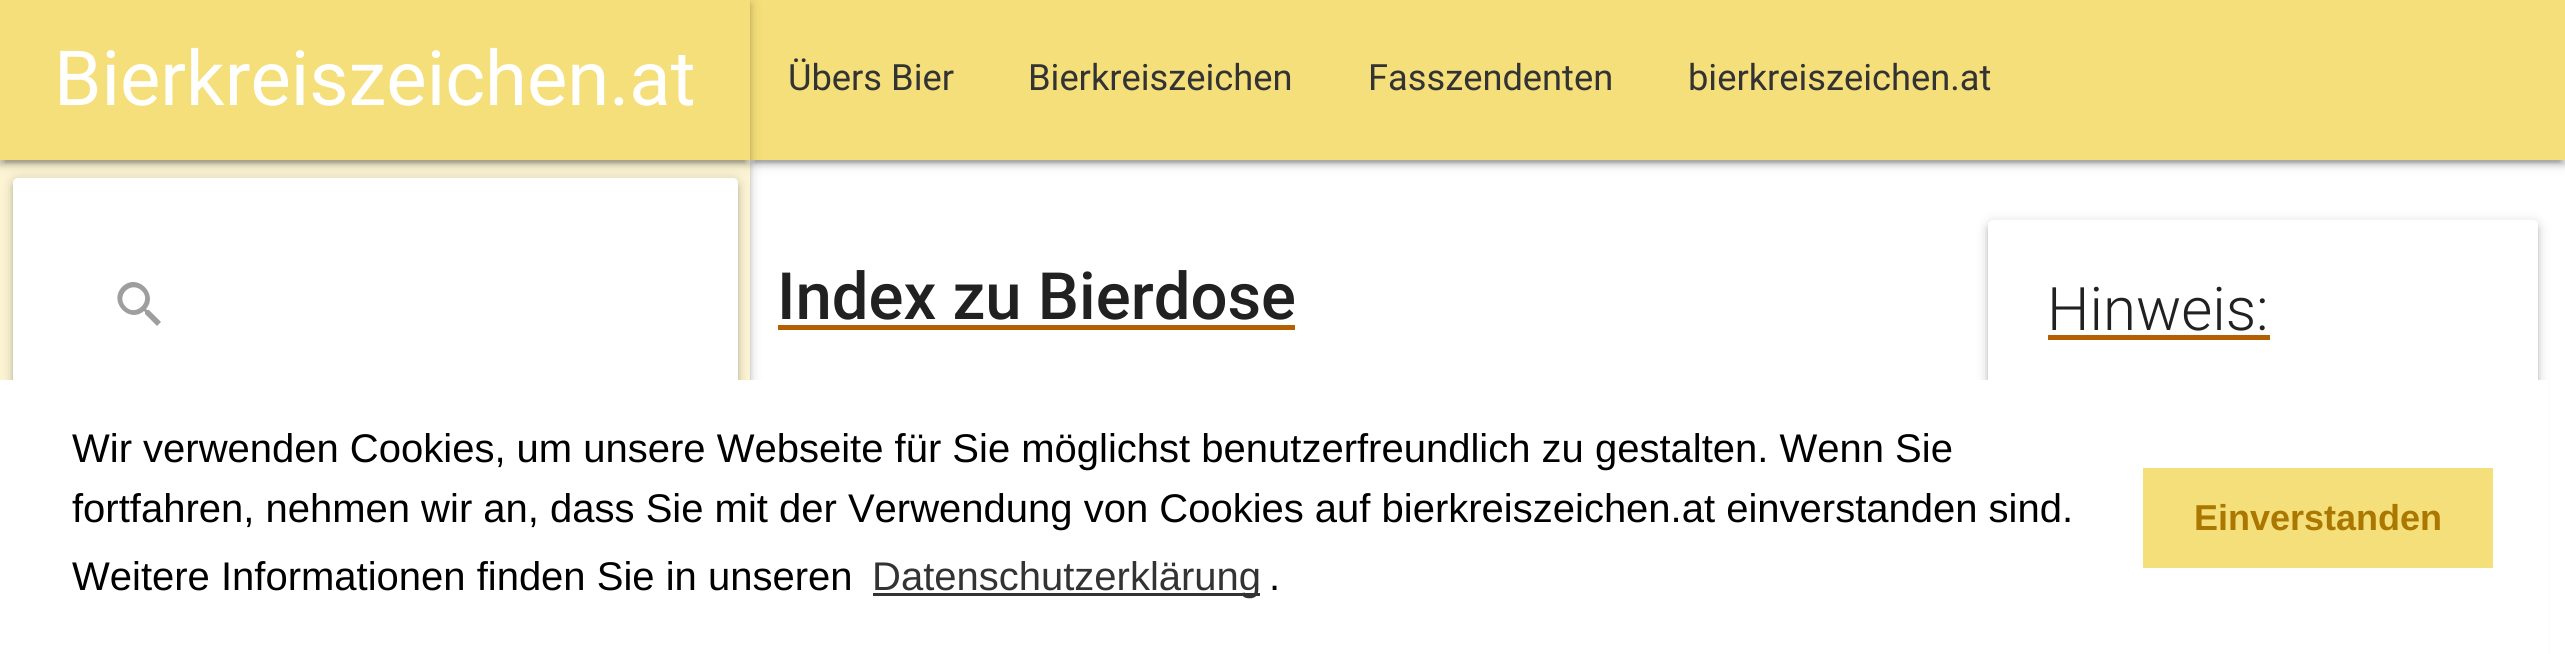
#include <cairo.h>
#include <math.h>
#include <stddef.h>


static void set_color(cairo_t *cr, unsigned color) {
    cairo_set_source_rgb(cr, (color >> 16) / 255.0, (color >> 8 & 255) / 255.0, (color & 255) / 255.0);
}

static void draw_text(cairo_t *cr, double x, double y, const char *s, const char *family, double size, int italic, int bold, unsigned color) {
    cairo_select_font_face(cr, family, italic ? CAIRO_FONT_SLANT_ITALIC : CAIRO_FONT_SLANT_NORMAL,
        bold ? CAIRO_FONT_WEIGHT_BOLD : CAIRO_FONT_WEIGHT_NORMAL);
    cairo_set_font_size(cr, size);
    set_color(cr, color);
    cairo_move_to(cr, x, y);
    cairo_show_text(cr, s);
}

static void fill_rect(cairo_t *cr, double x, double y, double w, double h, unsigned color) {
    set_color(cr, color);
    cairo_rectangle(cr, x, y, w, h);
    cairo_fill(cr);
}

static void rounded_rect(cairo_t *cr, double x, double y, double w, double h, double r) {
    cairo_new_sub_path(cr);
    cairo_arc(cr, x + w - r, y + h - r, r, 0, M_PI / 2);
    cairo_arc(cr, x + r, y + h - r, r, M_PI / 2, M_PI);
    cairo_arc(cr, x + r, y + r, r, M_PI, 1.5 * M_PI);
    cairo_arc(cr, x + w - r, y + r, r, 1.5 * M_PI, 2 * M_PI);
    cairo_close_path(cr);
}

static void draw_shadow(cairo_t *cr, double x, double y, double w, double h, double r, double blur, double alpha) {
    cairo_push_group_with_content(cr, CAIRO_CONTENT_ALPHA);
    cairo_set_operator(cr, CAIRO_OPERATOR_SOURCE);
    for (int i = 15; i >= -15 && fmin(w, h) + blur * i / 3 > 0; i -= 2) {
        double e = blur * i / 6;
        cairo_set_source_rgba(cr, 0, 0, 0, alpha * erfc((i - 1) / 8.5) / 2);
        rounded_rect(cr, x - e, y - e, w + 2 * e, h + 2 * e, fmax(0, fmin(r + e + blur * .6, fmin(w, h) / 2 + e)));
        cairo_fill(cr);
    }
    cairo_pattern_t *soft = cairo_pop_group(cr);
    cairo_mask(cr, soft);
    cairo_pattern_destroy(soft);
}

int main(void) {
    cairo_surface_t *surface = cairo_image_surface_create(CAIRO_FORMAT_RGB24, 2565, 654);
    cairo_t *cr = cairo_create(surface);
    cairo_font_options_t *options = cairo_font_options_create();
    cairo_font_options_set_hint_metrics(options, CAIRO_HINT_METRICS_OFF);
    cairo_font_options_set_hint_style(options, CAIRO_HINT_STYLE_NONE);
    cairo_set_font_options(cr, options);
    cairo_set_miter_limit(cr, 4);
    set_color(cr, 0xFFFFFF);
    cairo_paint(cr);
    set_color(cr, 0x000000);
    draw_shadow(cr, 750, 3, 1815, 160, 0, 6, 0.2);
    draw_shadow(cr, 755, 13, 1805, 150, 0, 1, 0.12);
    draw_shadow(cr, 750, 5, 1815, 160, 0, 2.5, 0.14);
    fill_rect(cr, 750, 0, 1815, 160, 0xF5DF7A);
    set_color(cr, 0x000000);
    draw_shadow(cr, 0, 3, 750, 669, 0, 6, 0.2);
    draw_shadow(cr, 0, 5, 750, 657, 0, 2.5, 0.14);
    fill_rect(cr, 0, 160, 750, 220, 0xFCF4D3);
    cairo_save(cr);
    cairo_rectangle(cr, 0, 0, 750, 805);
    cairo_clip(cr);
    set_color(cr, 0x000000);
    draw_shadow(cr, 0, 3, 750, 160, 0, 6, 0.2);
    cairo_restore(cr);
    set_color(cr, 0x000000);
    draw_shadow(cr, 5, 13, 740, 150, 0, 1, 0.12);
    cairo_save(cr);
    cairo_rectangle(cr, 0, 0, 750, 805);
    cairo_clip(cr);
    draw_shadow(cr, 0, 5, 750, 160, 0, 2.5, 0.14);
    cairo_restore(cr);
    fill_rect(cr, 0, 0, 750, 160, 0xF5DF7A);
    draw_text(cr, 54, 105, "Bierkreiszeichen.at", "Roboto", 76.1, 0, 0, 0xFFFFFF);
    set_color(cr, 0x000000);
    draw_shadow(cr, 13, 180, 725, 253, 5, 6, 0.2);
    draw_shadow(cr, 13, 183, 725, 252, 5, 2.5, 0.14);
    set_color(cr, 0xFFFFFF);
    rounded_rect(cr, 13, 178, 725, 252, 5);
    cairo_fill(cr);
    set_color(cr, 0x9E9E9E);
    cairo_new_path(cr);
    cairo_move_to(cr, 126, 307);
    cairo_curve_to(cr, 136, 317, 152, 301, 142, 291);
    cairo_curve_to(cr, 131, 280, 115, 296, 126, 307);
    cairo_close_path(cr);
    cairo_move_to(cr, 149, 310);
    cairo_line_to(cr, 161, 322);
    cairo_line_to(cr, 157, 326);
    cairo_line_to(cr, 145, 314);
    cairo_line_to(cr, 145, 312);
    cairo_line_to(cr, 144, 311);
    cairo_curve_to(cr, 129, 324, 108, 302, 122, 287);
    cairo_curve_to(cr, 137, 272, 159, 294, 146, 309);
    cairo_line_to(cr, 147, 310);
    cairo_close_path(cr);
    cairo_fill(cr);
    draw_text(cr, 788, 90, "Übers Bier", "Roboto", 36.25, 0, 0, 0x333333);
    draw_text(cr, 1028, 90, "Bierkreiszeichen", "Roboto", 36.25, 0, 0, 0x333333);
    draw_text(cr, 1368, 90, "Fasszendenten", "Roboto", 36.25, 0, 0, 0x333333);
    draw_text(cr, 1688, 90, "bierkreiszeichen.at", "Roboto", 36.25, 0, 0, 0x333333);
    draw_text(cr, 777, 319, "Index zu Bierdose", "Roboto Medium", 65.25, 0, 0, 0x212121);
    fill_rect(cr, 778, 325, 517, 5, 0xB36002);
    set_color(cr, 0x000000);
    draw_shadow(cr, 1988, 223, 550, 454, 5, 6, 0.2);
    draw_shadow(cr, 1988, 225, 550, 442, 5, 2.5, 0.14);
    set_color(cr, 0xFFFFFF);
    rounded_rect(cr, 1988, 220, 550, 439, 5);
    cairo_fill(cr);
    draw_text(cr, 2047, 330, "Hinweis:", "Roboto Light", 60, 0, 0, 0x212121);
    fill_rect(cr, 2048, 335, 222, 5, 0xB36002);
    fill_rect(cr, 0, 380, 2548, 274, 0xFFFFFF);
    draw_text(cr, 72, 462, "Wir verwenden Cookies, um unsere Webseite für Sie möglichst benutzerfreundlich zu gestalten. Wenn Sie", "Liberation Sans", 40, 0, 0, 0x000000);
    draw_text(cr, 72, 522, "fortfahren, nehmen wir an, dass Sie mit der Verwendung von Cookies auf bierkreiszeichen.at einverstanden sind.", "Liberation Sans", 40, 0, 0, 0x000000);
    draw_text(cr, 72, 590, "Weitere Informationen finden Sie in unseren", "Liberation Sans", 40, 0, 0, 0x000000);
    fill_rect(cr, 873, 593, 387, 3, 0x333333);
    draw_text(cr, 872, 590, "Datenschutzerklärung", "Liberation Sans", 40, 0, 0, 0x333333);
    draw_text(cr, 1269, 590, ".", "Liberation Sans", 40, 0, 0, 0x000000);
    fill_rect(cr, 2143, 468, 350, 100, 0xF5DF7A);
    draw_text(cr, 2194, 530, "Einverstanden", "Liberation Sans", 36, 0, 1, 0xAA7700);
    cairo_surface_write_to_png(surface, "output.png");
    cairo_font_options_destroy(options);
    cairo_destroy(cr);
    cairo_surface_destroy(surface);
    return 0;
}
